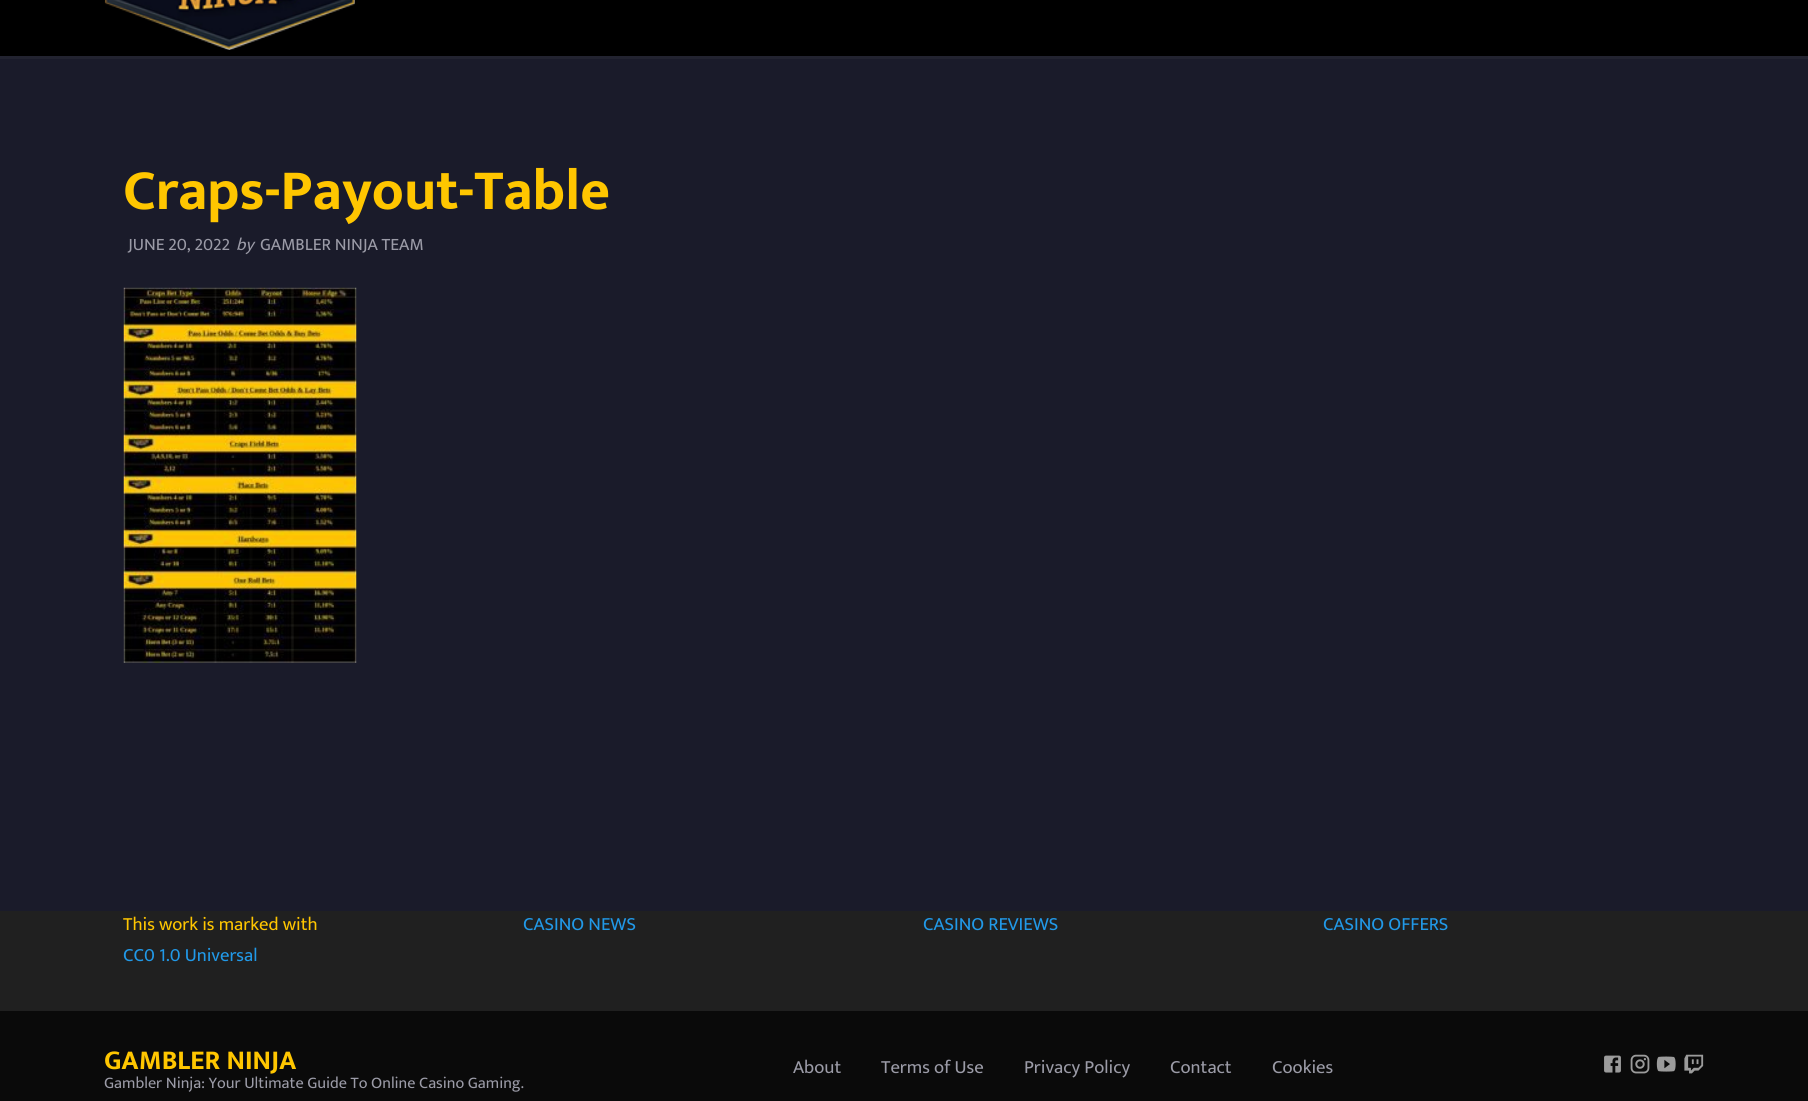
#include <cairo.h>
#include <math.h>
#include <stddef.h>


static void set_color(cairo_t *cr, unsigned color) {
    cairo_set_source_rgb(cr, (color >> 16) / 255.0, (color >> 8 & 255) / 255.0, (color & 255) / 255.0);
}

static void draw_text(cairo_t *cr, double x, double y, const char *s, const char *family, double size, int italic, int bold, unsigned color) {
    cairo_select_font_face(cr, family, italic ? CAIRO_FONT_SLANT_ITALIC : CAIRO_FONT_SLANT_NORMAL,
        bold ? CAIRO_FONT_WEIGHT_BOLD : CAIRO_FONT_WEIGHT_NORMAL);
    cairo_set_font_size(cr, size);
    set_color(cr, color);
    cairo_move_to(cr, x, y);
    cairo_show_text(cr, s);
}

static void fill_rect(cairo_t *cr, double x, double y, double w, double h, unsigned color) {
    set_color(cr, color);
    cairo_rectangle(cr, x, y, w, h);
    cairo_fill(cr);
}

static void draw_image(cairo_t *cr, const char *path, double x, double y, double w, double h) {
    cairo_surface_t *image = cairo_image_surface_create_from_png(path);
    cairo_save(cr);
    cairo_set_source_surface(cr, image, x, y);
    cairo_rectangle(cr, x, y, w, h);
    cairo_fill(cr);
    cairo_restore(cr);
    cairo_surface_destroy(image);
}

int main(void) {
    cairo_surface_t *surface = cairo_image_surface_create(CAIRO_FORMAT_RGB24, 1808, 1101);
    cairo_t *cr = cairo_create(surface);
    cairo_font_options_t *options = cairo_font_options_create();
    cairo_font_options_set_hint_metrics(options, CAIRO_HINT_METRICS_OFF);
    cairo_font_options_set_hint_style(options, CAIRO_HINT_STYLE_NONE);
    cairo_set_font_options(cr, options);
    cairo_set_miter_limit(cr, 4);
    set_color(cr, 0x1A1B2A);
    cairo_paint(cr);
    set_color(cr, 0x222330);
    cairo_new_path(cr);
    cairo_move_to(cr, 0, 56);
    cairo_line_to(cr, 0, 59);
    cairo_line_to(cr, 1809, 59);
    cairo_line_to(cr, 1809, -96);
    cairo_line_to(cr, 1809, 56);
    cairo_close_path(cr);
    cairo_fill(cr);
    fill_rect(cr, 0, 0, 1808, 56, 0x000000);
    draw_image(cr, "assets/img1.png", 104, 0, 251, 50);
    draw_text(cr, 123, 209, "Craps-Payout-Table", "Ek Mukta", 57.5, 0, 1, 0xFFC600);
    draw_text(cr, 128, 250, "JUNE 20, 2022", "Ek Mukta", 17.5, 0, 0, 0x9B9BA7);
    draw_text(cr, 236, 250, "by", "Ek Mukta", 17.5, 1, 0, 0x9B9BA7);
    draw_text(cr, 260, 250, "GAMBLER NINJA TEAM", "Ek Mukta", 17.5, 0, 0, 0x9B9BA7);
    draw_image(cr, "assets/img2.png", 123, 287, 234, 376);
    fill_rect(cr, 0, 911, 1808, 100, 0x202020);
    draw_text(cr, 123, 930, "This work is marked with", "Ek Mukta", 18.75, 0, 0, 0xFFC600);
    draw_text(cr, 123, 961, "CC0 1.0 Universal", "Ek Mukta", 18.75, 0, 0, 0x2199E8);
    draw_text(cr, 523, 930, "CASINO NEWS", "Ek Mukta", 18.75, 0, 0, 0x2199E8);
    draw_text(cr, 923, 930, "CASINO REVIEWS", "Ek Mukta", 18.75, 0, 0, 0x2199E8);
    draw_text(cr, 1323, 930, "CASINO OFFERS", "Ek Mukta", 18.75, 0, 0, 0x2199E8);
    fill_rect(cr, 0, 1011, 1808, 90, 0x0A0A0A);
    draw_text(cr, 104, 1069, "GAMBLER NINJA", "Ek Mukta", 27.5, 0, 1, 0xFFC600);
    draw_text(cr, 104, 1088, "Gambler Ninja: Your Ultimate Guide To Online Casino Gaming.", "Ek Mukta", 16.25, 0, 0, 0x9B9BA7);
    draw_text(cr, 793, 1073, "About", "Ek Mukta", 18.75, 0, 0, 0x9B9BA7);
    draw_text(cr, 881, 1073, "Terms of Use", "Ek Mukta", 18.75, 0, 0, 0x9B9BA7);
    draw_text(cr, 1024, 1073, "Privacy Policy", "Ek Mukta", 18.75, 0, 0, 0x9B9BA7);
    draw_text(cr, 1170, 1073, "Contact", "Ek Mukta", 18.75, 0, 0, 0x9B9BA7);
    draw_text(cr, 1272, 1073, "Cookies", "Ek Mukta", 18.75, 0, 0, 0x9B9BA7);
    draw_image(cr, "assets/img3.png", 1604, 1055, 17, 18);
    draw_image(cr, "assets/img4.png", 1630, 1054, 20, 20);
    draw_image(cr, "assets/img5.png", 1656, 1056, 20, 16);
    draw_image(cr, "assets/img6.png", 1684, 1054, 20, 20);
    cairo_surface_write_to_png(surface, "output.png");
    cairo_font_options_destroy(options);
    cairo_destroy(cr);
    cairo_surface_destroy(surface);
    return 0;
}
